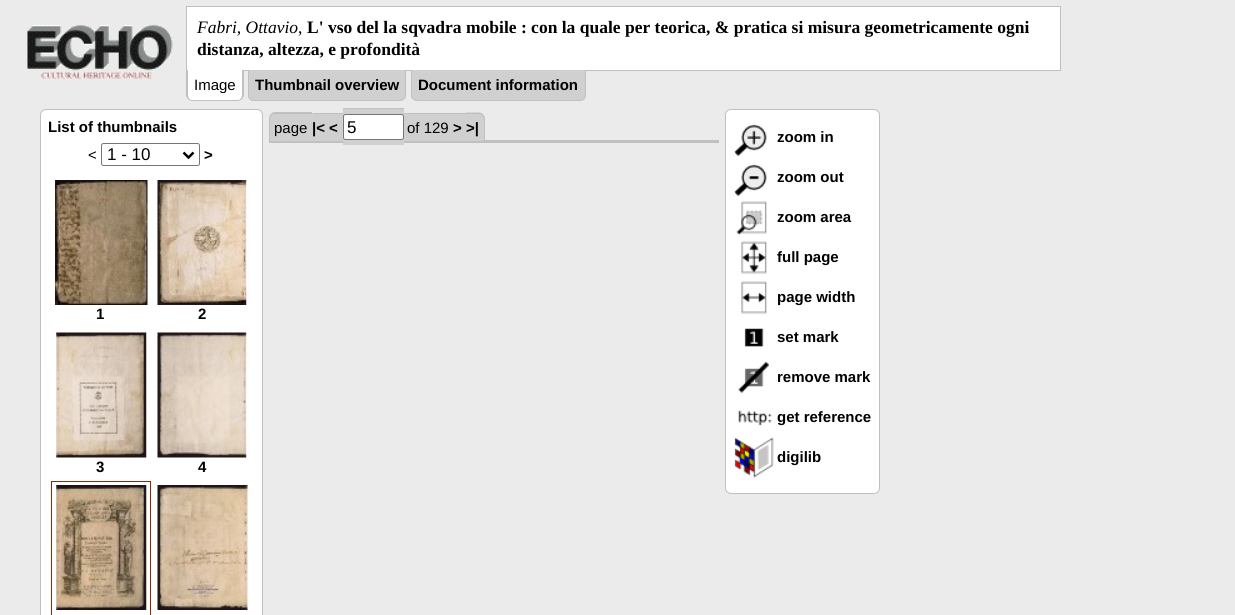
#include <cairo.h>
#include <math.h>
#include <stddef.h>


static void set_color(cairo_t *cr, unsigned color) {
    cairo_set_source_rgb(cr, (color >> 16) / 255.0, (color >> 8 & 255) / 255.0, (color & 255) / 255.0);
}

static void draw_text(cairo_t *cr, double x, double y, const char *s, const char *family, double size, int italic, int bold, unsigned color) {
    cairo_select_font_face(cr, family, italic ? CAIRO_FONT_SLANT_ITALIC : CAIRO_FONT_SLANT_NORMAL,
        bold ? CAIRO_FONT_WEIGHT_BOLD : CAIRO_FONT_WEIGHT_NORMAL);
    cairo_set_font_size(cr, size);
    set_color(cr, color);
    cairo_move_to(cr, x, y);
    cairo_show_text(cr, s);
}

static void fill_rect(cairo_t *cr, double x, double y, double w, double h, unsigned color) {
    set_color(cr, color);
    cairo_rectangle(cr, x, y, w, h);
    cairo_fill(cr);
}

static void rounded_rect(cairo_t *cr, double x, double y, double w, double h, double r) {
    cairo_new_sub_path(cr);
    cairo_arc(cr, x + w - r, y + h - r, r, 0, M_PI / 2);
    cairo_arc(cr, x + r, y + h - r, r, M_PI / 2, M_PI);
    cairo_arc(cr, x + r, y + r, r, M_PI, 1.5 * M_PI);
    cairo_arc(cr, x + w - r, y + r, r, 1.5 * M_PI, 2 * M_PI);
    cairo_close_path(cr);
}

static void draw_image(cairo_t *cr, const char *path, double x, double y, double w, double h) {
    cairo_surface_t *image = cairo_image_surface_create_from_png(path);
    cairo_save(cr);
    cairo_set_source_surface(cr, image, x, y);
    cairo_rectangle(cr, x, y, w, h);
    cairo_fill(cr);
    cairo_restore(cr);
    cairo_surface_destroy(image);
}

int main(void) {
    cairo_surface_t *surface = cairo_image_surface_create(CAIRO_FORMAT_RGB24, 1235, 615);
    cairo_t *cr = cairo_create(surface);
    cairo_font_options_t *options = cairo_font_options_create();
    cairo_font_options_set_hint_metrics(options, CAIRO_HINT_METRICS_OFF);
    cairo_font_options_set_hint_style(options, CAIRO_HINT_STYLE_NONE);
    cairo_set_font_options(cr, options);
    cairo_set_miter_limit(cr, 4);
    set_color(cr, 0xEBEBEB);
    cairo_paint(cr);
    draw_image(cr, "assets/img1.png", 27, 25, 146, 54);
    set_color(cr, 0xFFFFFF);
    cairo_rectangle(cr, 186.5, 6.5, 874, 64);
    cairo_fill_preserve(cr);
    set_color(cr, 0xC0C0C0);
    cairo_set_line_width(cr, 1);
    cairo_stroke(cr);
    draw_text(cr, 197, 33, "Fabri, Ottavio", "Liberation Serif", 17.5, 1, 0, 0x000000);
    draw_text(cr, 298, 33, ",", "Liberation Serif", 17.5, 0, 0, 0x000000);
    draw_text(cr, 307, 33, "L' vso del la sqvadra mobile : con la quale per teorica, & pratica si misura geometricamente ogni", "Liberation Serif", 17.5, 0, 1, 0x000000);
    draw_text(cr, 197, 55, "distanza, altezza, e profondità", "Liberation Serif", 17.5, 0, 1, 0x000000);
    set_color(cr, 0xFFFFFF);
    cairo_new_path(cr);
    cairo_move_to(cr, 186, 70);
    cairo_line_to(cr, 244, 70);
    cairo_line_to(cr, 244, 95);
    cairo_curve_to(cr, 244, 98.5, 241.5, 101, 238, 101);
    cairo_line_to(cr, 192, 101);
    cairo_curve_to(cr, 188.5, 101, 186, 98.5, 186, 95);
    cairo_close_path(cr);
    cairo_fill(cr);
    set_color(cr, 0xC0C0C0);
    cairo_set_fill_rule(cr, CAIRO_FILL_RULE_EVEN_ODD);
    cairo_new_path(cr);
    cairo_move_to(cr, 186, 70);
    cairo_line_to(cr, 244, 70);
    cairo_line_to(cr, 244, 95);
    cairo_curve_to(cr, 244, 98, 241, 101, 238, 101);
    cairo_line_to(cr, 192, 101);
    cairo_curve_to(cr, 189, 101, 186, 98, 186, 95);
    cairo_close_path(cr);
    cairo_move_to(cr, 188, 70);
    cairo_line_to(cr, 242, 70);
    cairo_line_to(cr, 242, 95);
    cairo_curve_to(cr, 242, 98, 240, 100, 238, 100);
    cairo_line_to(cr, 192, 100);
    cairo_curve_to(cr, 190, 100, 188, 98, 188, 95);
    cairo_close_path(cr);
    cairo_fill(cr);
    draw_text(cr, 194, 90, "Image", "Liberation Sans", 15, 0, 0, 0x000000);
    set_color(cr, 0xD0D0D0);
    cairo_new_path(cr);
    cairo_move_to(cr, 248, 70);
    cairo_line_to(cr, 406, 70);
    cairo_line_to(cr, 406, 95);
    cairo_curve_to(cr, 406, 98.5, 403.5, 101, 400, 101);
    cairo_line_to(cr, 254, 101);
    cairo_curve_to(cr, 250.5, 101, 248, 98.5, 248, 95);
    cairo_close_path(cr);
    cairo_fill(cr);
    set_color(cr, 0xC0C0C0);
    cairo_new_path(cr);
    cairo_move_to(cr, 248, 70);
    cairo_line_to(cr, 406, 70);
    cairo_line_to(cr, 406, 95);
    cairo_curve_to(cr, 406, 98, 403, 101, 400, 101);
    cairo_line_to(cr, 254, 101);
    cairo_curve_to(cr, 250, 101, 248, 98, 248, 95);
    cairo_close_path(cr);
    cairo_move_to(cr, 249, 70);
    cairo_line_to(cr, 405, 70);
    cairo_line_to(cr, 405, 95);
    cairo_curve_to(cr, 405, 98, 403, 100, 400, 100);
    cairo_line_to(cr, 254, 100);
    cairo_curve_to(cr, 251, 100, 249, 98, 249, 95);
    cairo_close_path(cr);
    cairo_fill(cr);
    draw_text(cr, 255, 90, "Thumbnail overview", "Liberation Sans", 15, 0, 1, 0x000000);
    set_color(cr, 0xD0D0D0);
    cairo_new_path(cr);
    cairo_move_to(cr, 411, 70);
    cairo_line_to(cr, 586, 70);
    cairo_line_to(cr, 586, 95);
    cairo_curve_to(cr, 586, 98.5, 583.5, 101, 580, 101);
    cairo_line_to(cr, 417, 101);
    cairo_curve_to(cr, 413.5, 101, 411, 98.5, 411, 95);
    cairo_close_path(cr);
    cairo_fill(cr);
    set_color(cr, 0xC0C0C0);
    cairo_new_path(cr);
    cairo_move_to(cr, 411, 70);
    cairo_line_to(cr, 586, 70);
    cairo_line_to(cr, 586, 95);
    cairo_curve_to(cr, 586, 98, 583, 101, 580, 101);
    cairo_line_to(cr, 418, 101);
    cairo_curve_to(cr, 414, 101, 411, 98, 411, 95);
    cairo_close_path(cr);
    cairo_move_to(cr, 412, 70);
    cairo_line_to(cr, 585, 70);
    cairo_line_to(cr, 585, 95);
    cairo_curve_to(cr, 585, 98, 583, 100, 580, 100);
    cairo_line_to(cr, 418, 100);
    cairo_curve_to(cr, 415, 100, 412, 98, 412, 95);
    cairo_close_path(cr);
    cairo_fill(cr);
    draw_text(cr, 418, 90, "Document information", "Liberation Sans", 15, 0, 1, 0x000000);
    set_color(cr, 0xFFFFFF);
    rounded_rect(cr, 40.5, 109.5, 222, 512, 5.5);
    cairo_fill_preserve(cr);
    set_color(cr, 0xC0C0C0);
    cairo_stroke(cr);
    draw_text(cr, 48, 132, "List of thumbnails", "Liberation Sans", 15, 0, 1, 0x000000);
    draw_text(cr, 88, 160, "<", "Liberation Sans", 15, 0, 0, 0x000000);
    rounded_rect(cr, 101.5, 143.5, 98, 22, 2);
    set_color(cr, 0x767676);
    cairo_stroke(cr);
    cairo_new_path(cr);
    cairo_move_to(cr, 183.5, 152.5);
    cairo_line_to(cr, 188.5, 157.5);
    cairo_line_to(cr, 193.5, 152.5);
    set_color(cr, 0x000000);
    cairo_set_line_width(cr, 2.5);
    cairo_stroke(cr);
    draw_text(cr, 107, 160, "1 - 10", "Liberation Sans", 17, 0, 0, 0x000000);
    draw_text(cr, 204, 160, ">", "Liberation Sans", 15, 0, 1, 0x000000);
    draw_image(cr, "assets/img2.png", 55, 180, 93, 125);
    draw_text(cr, 96, 319, "1", "Liberation Sans", 15, 0, 1, 0x000000);
    draw_image(cr, "assets/img3.png", 157, 180, 90, 125);
    draw_text(cr, 198, 319, "2", "Liberation Sans", 15, 0, 1, 0x000000);
    draw_image(cr, "assets/img4.png", 56, 332, 91, 126);
    draw_text(cr, 96, 472, "3", "Liberation Sans", 15, 0, 1, 0x000000);
    draw_image(cr, "assets/img5.png", 157, 332, 90, 126);
    draw_text(cr, 198, 472, "4", "Liberation Sans", 15, 0, 1, 0x000000);
    cairo_rectangle(cr, 51.5, 481.5, 99, 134);
    set_color(cr, 0x892B06);
    cairo_set_line_width(cr, 1);
    cairo_stroke(cr);
    draw_image(cr, "assets/img6.png", 56, 485, 91, 125);
    draw_image(cr, "assets/img7.png", 157, 485, 91, 125);
    fill_rect(cr, 269, 140, 450, 3, 0xC0C0C0);
    set_color(cr, 0xD0D0D0);
    cairo_new_path(cr);
    cairo_move_to(cr, 275, 113);
    cairo_line_to(cr, 313, 113);
    cairo_line_to(cr, 313, 141);
    cairo_line_to(cr, 269, 141);
    cairo_line_to(cr, 269, 119);
    cairo_curve_to(cr, 269, 115.5, 271.5, 113, 275, 113);
    cairo_close_path(cr);
    cairo_fill(cr);
    set_color(cr, 0xC0C0C0);
    cairo_new_path(cr);
    cairo_move_to(cr, 275, 112);
    cairo_line_to(cr, 312, 112);
    cairo_line_to(cr, 312, 141);
    cairo_line_to(cr, 269, 141);
    cairo_line_to(cr, 269, 119);
    cairo_curve_to(cr, 269, 115, 272, 112, 275, 112);
    cairo_close_path(cr);
    cairo_move_to(cr, 275, 114);
    cairo_line_to(cr, 312, 114);
    cairo_line_to(cr, 312, 141);
    cairo_line_to(cr, 270, 141);
    cairo_line_to(cr, 270, 119);
    cairo_curve_to(cr, 270, 116, 272, 114, 275, 114);
    cairo_close_path(cr);
    cairo_fill(cr);
    fill_rect(cr, 313, 114, 12, 27, 0xD0D0D0);
    fill_rect(cr, 313, 113, 12, 1, 0xC0C0C0);
    fill_rect(cr, 325, 113, 4, 28, 0xD0D0D0);
    fill_rect(cr, 325, 113, 13, 1, 0xC0C0C0);
    fill_rect(cr, 329, 114, 9, 27, 0xD0D0D0);
    fill_rect(cr, 338, 113, 5, 28, 0xD0D0D0);
    fill_rect(cr, 338, 113, 5, 1, 0xC0C0C0);
    fill_rect(cr, 343, 109, 61, 36, 0xD0D0D0);
    fill_rect(cr, 343, 108, 61, 1, 0xC0C0C0);
    fill_rect(cr, 404, 113, 4, 28, 0xD0D0D0);
    fill_rect(cr, 404, 113, 59, 1, 0xC0C0C0);
    fill_rect(cr, 408, 114, 55, 27, 0xD0D0D0);
    fill_rect(cr, 463, 113, 3, 28, 0xD0D0D0);
    fill_rect(cr, 463, 113, 4, 1, 0xC0C0C0);
    set_color(cr, 0xD0D0D0);
    cairo_new_path(cr);
    cairo_move_to(cr, 466, 113);
    cairo_line_to(cr, 479, 113);
    cairo_curve_to(cr, 482.5, 113, 485, 115.5, 485, 119);
    cairo_line_to(cr, 485, 141);
    cairo_line_to(cr, 466, 141);
    cairo_close_path(cr);
    cairo_fill(cr);
    set_color(cr, 0xC0C0C0);
    cairo_new_path(cr);
    cairo_move_to(cr, 466, 112.5);
    cairo_line_to(cr, 479, 112.5);
    cairo_curve_to(cr, 482, 112.5, 485, 115.5, 485, 119);
    cairo_line_to(cr, 485, 141);
    cairo_line_to(cr, 466, 141);
    cairo_close_path(cr);
    cairo_move_to(cr, 466, 114);
    cairo_line_to(cr, 479, 114);
    cairo_curve_to(cr, 481.5, 114, 484, 116, 484, 119);
    cairo_line_to(cr, 484, 141);
    cairo_line_to(cr, 466, 141);
    cairo_close_path(cr);
    cairo_fill(cr);
    draw_text(cr, 274, 133, "page", "Liberation Sans", 15, 0, 0, 0x000000);
    draw_text(cr, 312, 133, "|< <", "Liberation Sans", 15, 0, 1, 0x000000);
    set_color(cr, 0xFFFFFF);
    rounded_rect(cr, 343.5, 114.5, 60, 25, 2);
    cairo_fill_preserve(cr);
    set_color(cr, 0x767676);
    cairo_stroke(cr);
    draw_text(cr, 347, 133, "5", "Liberation Sans", 17, 0, 0, 0x000000);
    draw_text(cr, 407, 133, "of 129", "Liberation Sans", 15, 0, 0, 0x000000);
    draw_text(cr, 453, 133, "> >|", "Liberation Sans", 15, 0, 1, 0x000000);
    set_color(cr, 0xFFFFFF);
    rounded_rect(cr, 725.5, 109.5, 154, 384, 5.5);
    cairo_fill_preserve(cr);
    set_color(cr, 0xC0C0C0);
    cairo_stroke(cr);
    draw_image(cr, "assets/img8.png", 734, 124, 33, 33);
    draw_text(cr, 777, 142, "zoom in", "Liberation Sans", 15, 0, 1, 0x000000);
    draw_image(cr, "assets/img9.png", 734, 164, 33, 33);
    draw_text(cr, 777, 182, "zoom out", "Liberation Sans", 15, 0, 1, 0x000000);
    draw_image(cr, "assets/img10.png", 736, 201, 31, 34);
    draw_text(cr, 777, 222, "zoom area", "Liberation Sans", 15, 0, 1, 0x000000);
    draw_image(cr, "assets/img11.png", 741, 241, 26, 33);
    draw_text(cr, 777, 262, "full page", "Liberation Sans", 15, 0, 1, 0x000000);
    draw_image(cr, "assets/img12.png", 741, 281, 26, 33);
    draw_text(cr, 777, 302, "page width", "Liberation Sans", 15, 0, 1, 0x000000);
    draw_image(cr, "assets/img13.png", 744, 328, 20, 19);
    draw_text(cr, 777, 342, "set mark", "Liberation Sans", 15, 0, 1, 0x000000);
    draw_image(cr, "assets/img14.png", 738, 361, 31, 32);
    draw_text(cr, 777, 382, "remove mark", "Liberation Sans", 15, 0, 1, 0x000000);
    draw_image(cr, "assets/img15.png", 738, 410, 34, 16);
    draw_text(cr, 777, 422, "get reference", "Liberation Sans", 15, 0, 1, 0x000000);
    draw_image(cr, "assets/img16.png", 734, 437, 40, 41);
    draw_text(cr, 777, 462, "digilib", "Liberation Sans", 15, 0, 1, 0x000000);
    cairo_surface_write_to_png(surface, "output.png");
    cairo_font_options_destroy(options);
    cairo_destroy(cr);
    cairo_surface_destroy(surface);
    return 0;
}
